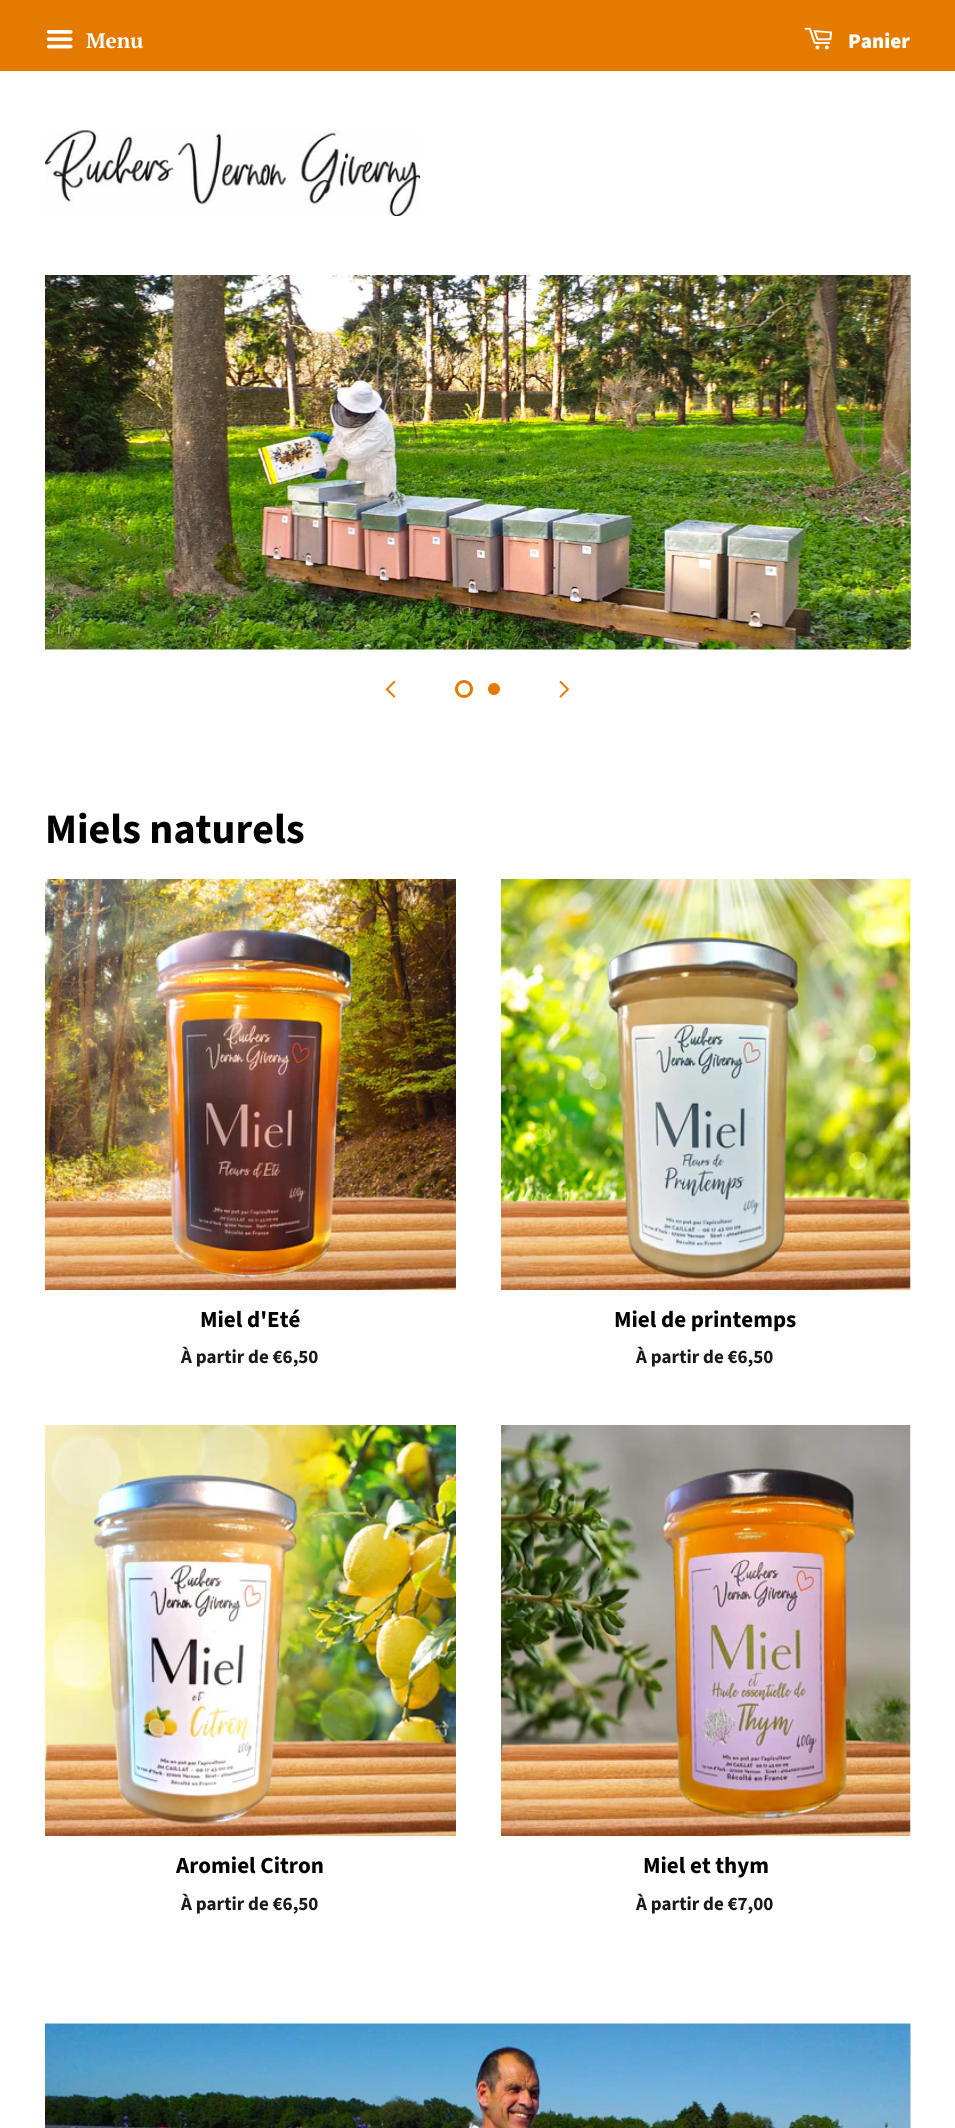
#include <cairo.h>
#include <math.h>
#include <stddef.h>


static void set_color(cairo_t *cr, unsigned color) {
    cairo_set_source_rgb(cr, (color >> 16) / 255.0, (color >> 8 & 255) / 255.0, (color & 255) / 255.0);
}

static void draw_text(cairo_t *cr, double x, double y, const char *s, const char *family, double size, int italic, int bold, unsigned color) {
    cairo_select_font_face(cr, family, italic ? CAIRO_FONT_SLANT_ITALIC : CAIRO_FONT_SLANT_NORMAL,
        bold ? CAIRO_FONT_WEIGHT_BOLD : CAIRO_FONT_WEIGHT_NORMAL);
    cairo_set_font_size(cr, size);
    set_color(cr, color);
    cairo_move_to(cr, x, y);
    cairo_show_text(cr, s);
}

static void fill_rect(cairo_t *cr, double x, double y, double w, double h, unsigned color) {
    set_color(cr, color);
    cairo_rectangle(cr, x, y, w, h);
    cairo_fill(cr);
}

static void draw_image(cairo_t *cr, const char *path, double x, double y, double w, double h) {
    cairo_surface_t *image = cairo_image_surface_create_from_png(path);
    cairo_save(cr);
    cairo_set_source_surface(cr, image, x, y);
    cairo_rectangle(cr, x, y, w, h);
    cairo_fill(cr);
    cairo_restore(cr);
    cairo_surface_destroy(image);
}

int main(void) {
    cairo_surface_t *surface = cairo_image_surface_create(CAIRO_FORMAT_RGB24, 955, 2128);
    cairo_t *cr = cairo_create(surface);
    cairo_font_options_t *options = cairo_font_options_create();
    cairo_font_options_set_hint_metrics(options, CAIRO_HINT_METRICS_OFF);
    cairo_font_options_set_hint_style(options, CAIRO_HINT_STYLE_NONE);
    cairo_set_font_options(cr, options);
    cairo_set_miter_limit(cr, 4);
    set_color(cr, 0xFFFFFF);
    cairo_paint(cr);
    fill_rect(cr, 0, 0, 955, 71, 0xE47B00);
    draw_image(cr, "assets/img1.png", 46, 30, 27, 19);
    draw_text(cr, 86, 48, "Menu", "PT Serif", 21, 0, 1, 0xFFFFFF);
    draw_image(cr, "assets/img2.png", 804, 27, 29, 23);
    draw_text(cr, 848, 48, "Panier", "Source Sans Pro Black", 21, 0, 0, 0xFFFFFF);
    draw_image(cr, "assets/img3.png", 45, 130, 375, 86);
    draw_image(cr, "assets/img4.png", 45, 275, 866, 375);
    draw_image(cr, "assets/img5.png", 385, 680, 11, 18);
    draw_image(cr, "assets/img6.png", 559, 680, 11, 18);
    cairo_arc(cr, 464, 689, 7.5, 0, 2 * M_PI);
    set_color(cr, 0xE47B00);
    cairo_set_line_width(cr, 3);
    cairo_stroke(cr);
    cairo_arc(cr, 494, 689, 7.5, 0, 2 * M_PI);
    cairo_fill_preserve(cr);
    set_color(cr, 0xFFFFFF);
    cairo_stroke(cr);
    draw_text(cr, 45, 843, "Miels naturels", "Source Sans Pro", 42, 0, 1, 0x000000);
    draw_image(cr, "assets/img7.png", 45, 879, 411, 411);
    draw_text(cr, 200, 1327, "Miel d'Eté", "Source Sans Pro", 23, 0, 1, 0x000000);
    draw_text(cr, 181, 1363, "À partir de €6,50", "Source Sans Pro", 19, 0, 1, 0x1A1A1A);
    draw_image(cr, "assets/img8.png", 501, 879, 410, 411);
    draw_text(cr, 614, 1327, "Miel de printemps", "Source Sans Pro", 23, 0, 1, 0x000000);
    draw_text(cr, 636, 1363, "À partir de €6,50", "Source Sans Pro", 19, 0, 1, 0x1A1A1A);
    draw_image(cr, "assets/img9.png", 45, 1425, 411, 411);
    draw_text(cr, 176, 1873, "Aromiel Citron", "Source Sans Pro", 23, 0, 1, 0x000000);
    draw_text(cr, 181, 1910, "À partir de €6,50", "Source Sans Pro", 19, 0, 1, 0x1A1A1A);
    draw_image(cr, "assets/img10.png", 501, 1425, 410, 411);
    draw_text(cr, 643, 1873, "Miel et thym", "Source Sans Pro", 23, 0, 1, 0x000000);
    draw_text(cr, 636, 1910, "À partir de €7,00", "Source Sans Pro", 19, 0, 1, 0x1A1A1A);
    draw_image(cr, "assets/img11.png", 45, 2023, 866, 105);
    cairo_surface_write_to_png(surface, "output.png");
    cairo_font_options_destroy(options);
    cairo_destroy(cr);
    cairo_surface_destroy(surface);
    return 0;
}
